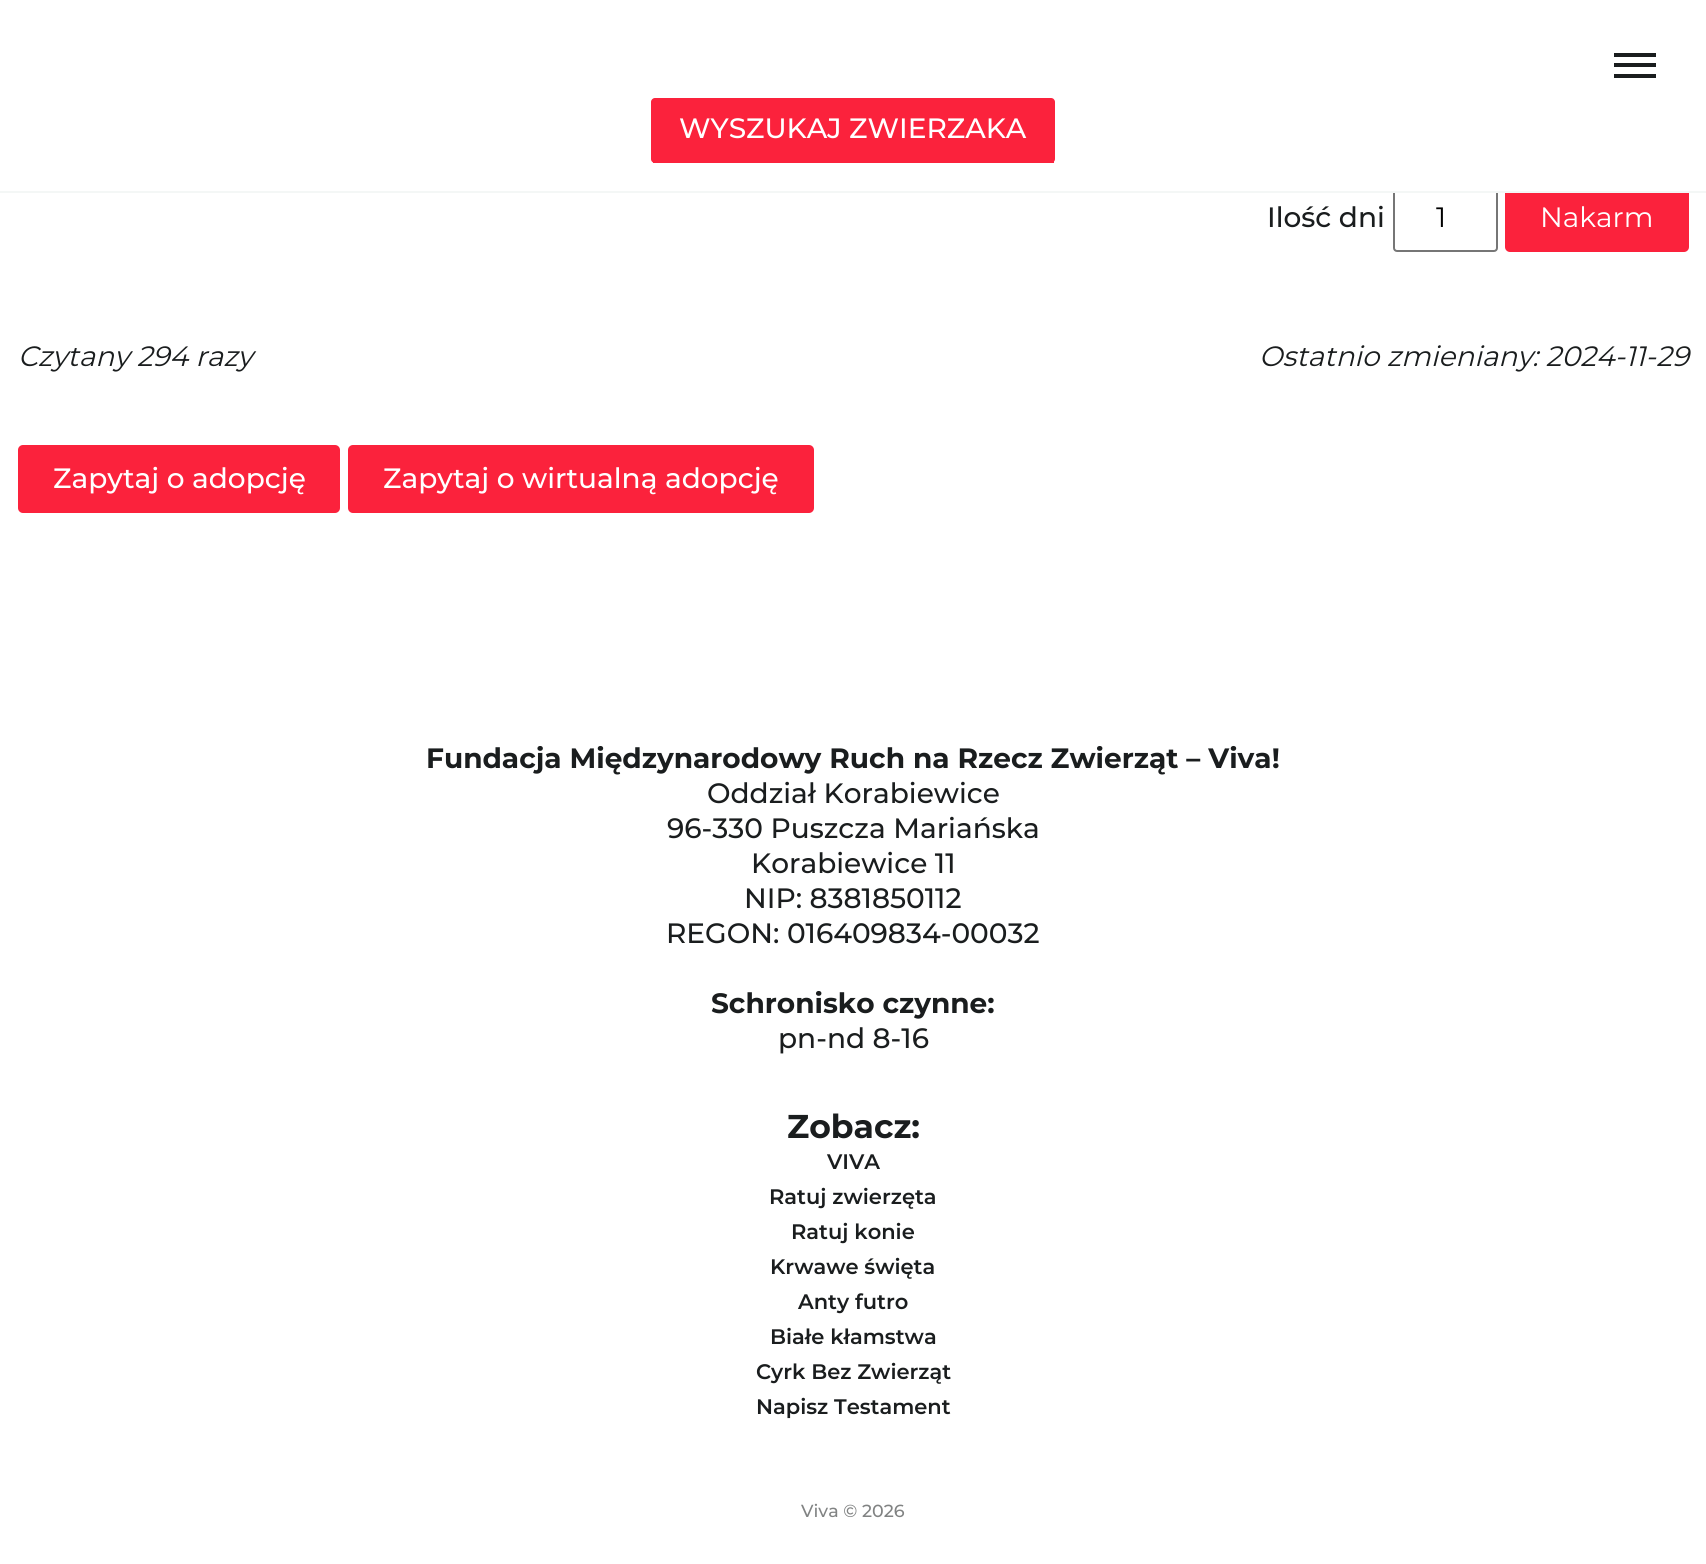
#include <cairo.h>
#include <math.h>
#include <stddef.h>


static void set_color(cairo_t *cr, unsigned color) {
    cairo_set_source_rgb(cr, (color >> 16) / 255.0, (color >> 8 & 255) / 255.0, (color & 255) / 255.0);
}

static void draw_text(cairo_t *cr, double x, double y, const char *s, const char *family, double size, int italic, int bold, unsigned color) {
    cairo_select_font_face(cr, family, italic ? CAIRO_FONT_SLANT_ITALIC : CAIRO_FONT_SLANT_NORMAL,
        bold ? CAIRO_FONT_WEIGHT_BOLD : CAIRO_FONT_WEIGHT_NORMAL);
    cairo_set_font_size(cr, size);
    set_color(cr, color);
    cairo_move_to(cr, x, y);
    cairo_show_text(cr, s);
}

static void fill_rect(cairo_t *cr, double x, double y, double w, double h, unsigned color) {
    set_color(cr, color);
    cairo_rectangle(cr, x, y, w, h);
    cairo_fill(cr);
}

static void rounded_rect(cairo_t *cr, double x, double y, double w, double h, double r) {
    cairo_new_sub_path(cr);
    cairo_arc(cr, x + w - r, y + h - r, r, 0, M_PI / 2);
    cairo_arc(cr, x + r, y + h - r, r, M_PI / 2, M_PI);
    cairo_arc(cr, x + r, y + r, r, M_PI, 1.5 * M_PI);
    cairo_arc(cr, x + w - r, y + r, r, 1.5 * M_PI, 2 * M_PI);
    cairo_close_path(cr);
}

int main(void) {
    cairo_surface_t *surface = cairo_image_surface_create(CAIRO_FORMAT_RGB24, 1706, 1564);
    cairo_t *cr = cairo_create(surface);
    cairo_font_options_t *options = cairo_font_options_create();
    cairo_font_options_set_hint_metrics(options, CAIRO_HINT_METRICS_OFF);
    cairo_font_options_set_hint_style(options, CAIRO_HINT_STYLE_NONE);
    cairo_set_font_options(cr, options);
    cairo_set_miter_limit(cr, 4);
    set_color(cr, 0xFFFFFF);
    cairo_paint(cr);
    rounded_rect(cr, 1394, 183, 103, 68, 3);
    set_color(cr, 0x767676);
    cairo_stroke(cr);
    set_color(cr, 0xFB223C);
    rounded_rect(cr, 1505, 184, 184, 68, 5);
    cairo_fill(cr);
    fill_rect(cr, 1393, 182, 296, 9, 0xFFFFFF);
    fill_rect(cr, 0, 191, 1706, 2, 0xF4F7F6);
    fill_rect(cr, 1614, 63, 42, 4, 0x1A1D1E);
    fill_rect(cr, 1614, 53, 42, 4, 0x1A1D1E);
    fill_rect(cr, 1614, 74, 42, 4, 0x1A1D1E);
    set_color(cr, 0xFB223C);
    rounded_rect(cr, 651, 98, 404, 65, 4);
    cairo_fill(cr);
    fill_rect(cr, 653, 161, 401, 2, 0xFB223C);
    draw_text(cr, 679, 138, "WYSZUKAJ ZWIERZAKA", "Montserrat Medium", 28, 0, 0, 0xFFFFFF);
    draw_text(cr, 1267, 227, "Ilość dni", "Montserrat Medium", 28, 0, 0, 0x1A1D1E);
    draw_text(cr, 1436, 227, "1", "Montserrat", 28, 0, 0, 0x000000);
    draw_text(cr, 1540, 227, "Nakarm", "Montserrat", 28, 0, 0, 0xFFFFFF);
    draw_text(cr, 18, 366, "Czytany 294 razy", "Montserrat", 28, 1, 0, 0x1A1D1E);
    draw_text(cr, 1259, 366, "Ostatnio zmieniany: 2024-11-29", "Montserrat", 28, 1, 0, 0x1A1D1E);
    set_color(cr, 0xFB223C);
    rounded_rect(cr, 18, 445, 322, 68, 5);
    cairo_fill(cr);
    draw_text(cr, 53, 488, "Zapytaj o adopcję", "Montserrat Medium", 28, 0, 0, 0xFFFFFF);
    set_color(cr, 0xFB223C);
    rounded_rect(cr, 348, 445, 466, 68, 5);
    cairo_fill(cr);
    draw_text(cr, 383, 488, "Zapytaj o wirtualną adopcję", "Montserrat Medium", 28, 0, 0, 0xFFFFFF);
    draw_text(cr, 426, 768, "Fundacja Międzynarodowy Ruch na Rzecz Zwierząt – Viva!", "Montserrat", 28, 0, 1, 0x1A1D1E);
    draw_text(cr, 707, 803, "Oddział Korabiewice", "Montserrat Medium", 28, 0, 0, 0x1A1D1E);
    draw_text(cr, 667, 838, "96-330 Puszcza Mariańska", "Montserrat Medium", 28, 0, 0, 0x1A1D1E);
    draw_text(cr, 751, 873, "Korabiewice 11", "Montserrat Medium", 28, 0, 0, 0x1A1D1E);
    draw_text(cr, 744, 908, "NIP: 8381850112", "Montserrat Medium", 28, 0, 0, 0x1A1D1E);
    draw_text(cr, 666, 943, "REGON: 016409834-00032", "Montserrat Medium", 28, 0, 0, 0x1A1D1E);
    draw_text(cr, 711, 1013, "Schronisko czynne:", "Montserrat", 28, 0, 1, 0x1A1D1E);
    draw_text(cr, 778, 1048, "pn-nd 8-16", "Montserrat Medium", 28, 0, 0, 0x1A1D1E);
    draw_text(cr, 787, 1138, "Zobacz:", "Montserrat", 33, 0, 1, 0x1A1D1E);
    draw_text(cr, 827, 1169, "VIVA", "Montserrat SemiBold", 21, 0, 0, 0x1A1D1E);
    draw_text(cr, 769, 1204, "Ratuj zwierzęta", "Montserrat SemiBold", 21, 0, 0, 0x1A1D1E);
    draw_text(cr, 791, 1239, "Ratuj konie", "Montserrat SemiBold", 21, 0, 0, 0x1A1D1E);
    draw_text(cr, 770, 1274, "Krwawe święta", "Montserrat SemiBold", 21, 0, 0, 0x1A1D1E);
    draw_text(cr, 798, 1309, "Anty futro", "Montserrat SemiBold", 21, 0, 0, 0x1A1D1E);
    draw_text(cr, 770, 1344, "Białe kłamstwa", "Montserrat SemiBold", 21, 0, 0, 0x1A1D1E);
    draw_text(cr, 756, 1379, "Cyrk Bez Zwierząt", "Montserrat SemiBold", 21, 0, 0, 0x1A1D1E);
    draw_text(cr, 756, 1414, "Napisz Testament", "Montserrat SemiBold", 21, 0, 0, 0x1A1D1E);
    draw_text(cr, 801, 1517, "Viva © 2026", "Montserrat Medium", 17.5, 0, 0, 0x818383);
    cairo_surface_write_to_png(surface, "output.png");
    cairo_font_options_destroy(options);
    cairo_destroy(cr);
    cairo_surface_destroy(surface);
    return 0;
}
